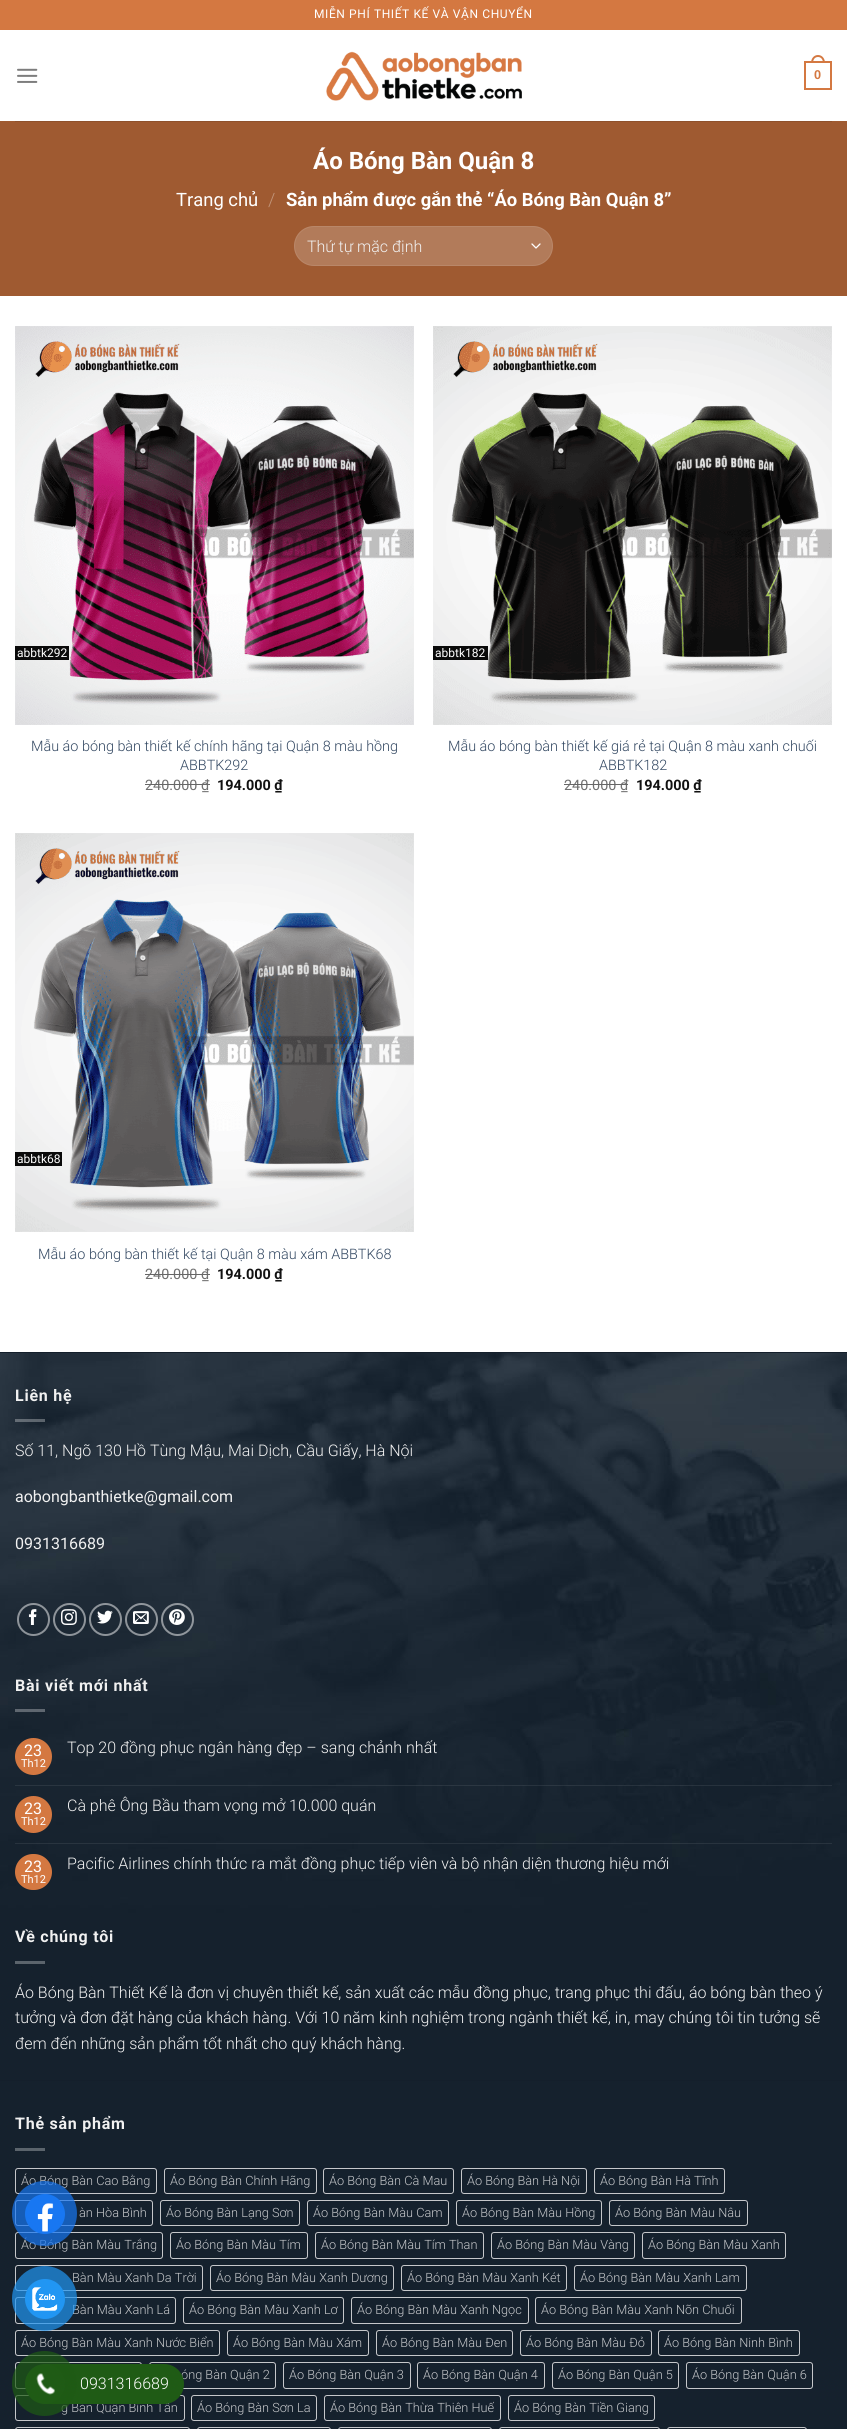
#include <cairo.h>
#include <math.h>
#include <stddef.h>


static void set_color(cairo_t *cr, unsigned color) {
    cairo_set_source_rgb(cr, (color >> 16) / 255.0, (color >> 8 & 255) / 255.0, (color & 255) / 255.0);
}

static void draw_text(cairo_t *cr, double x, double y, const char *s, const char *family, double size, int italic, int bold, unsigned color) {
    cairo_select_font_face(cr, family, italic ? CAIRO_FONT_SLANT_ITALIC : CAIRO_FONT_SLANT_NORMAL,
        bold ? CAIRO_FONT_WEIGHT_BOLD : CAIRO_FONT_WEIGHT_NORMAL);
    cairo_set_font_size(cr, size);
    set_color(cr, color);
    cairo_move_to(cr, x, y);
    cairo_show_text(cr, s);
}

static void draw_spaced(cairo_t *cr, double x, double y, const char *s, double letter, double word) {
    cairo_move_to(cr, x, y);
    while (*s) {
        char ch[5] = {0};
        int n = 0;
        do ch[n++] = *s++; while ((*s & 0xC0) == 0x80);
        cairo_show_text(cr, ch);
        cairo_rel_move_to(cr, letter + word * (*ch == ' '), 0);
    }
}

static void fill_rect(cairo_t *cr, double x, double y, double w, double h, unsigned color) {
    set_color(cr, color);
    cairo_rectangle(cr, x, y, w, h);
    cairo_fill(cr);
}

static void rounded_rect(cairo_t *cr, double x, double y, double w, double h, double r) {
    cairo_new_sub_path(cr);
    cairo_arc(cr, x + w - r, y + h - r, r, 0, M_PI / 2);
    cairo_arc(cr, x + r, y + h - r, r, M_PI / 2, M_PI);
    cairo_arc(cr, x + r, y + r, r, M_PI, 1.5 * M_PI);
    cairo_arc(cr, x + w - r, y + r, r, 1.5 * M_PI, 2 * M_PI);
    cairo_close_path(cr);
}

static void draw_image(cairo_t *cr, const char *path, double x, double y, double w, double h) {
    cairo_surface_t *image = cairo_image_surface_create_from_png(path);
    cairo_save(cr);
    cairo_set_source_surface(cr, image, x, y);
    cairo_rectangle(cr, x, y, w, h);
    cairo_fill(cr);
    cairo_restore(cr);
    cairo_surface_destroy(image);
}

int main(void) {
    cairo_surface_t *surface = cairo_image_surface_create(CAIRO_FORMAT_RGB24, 847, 2429);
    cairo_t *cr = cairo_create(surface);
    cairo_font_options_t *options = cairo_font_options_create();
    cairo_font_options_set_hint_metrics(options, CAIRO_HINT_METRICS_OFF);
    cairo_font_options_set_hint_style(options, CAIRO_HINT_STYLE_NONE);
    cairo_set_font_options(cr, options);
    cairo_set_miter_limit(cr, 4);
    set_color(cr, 0xFFFFFF);
    cairo_paint(cr);
    fill_rect(cr, 0, 0, 847, 30, 0xD47841);
    cairo_select_font_face(cr, "Roboto", CAIRO_FONT_SLANT_NORMAL, CAIRO_FONT_WEIGHT_NORMAL);
    cairo_set_font_size(cr, 12);
    set_color(cr, 0xFFFFFF);
    draw_spaced(cr, 314, 18, "MIỄN PHÍ THIẾT KẾ VÀ VẬN CHUYỂN", 0.6, 0);
    draw_image(cr, "assets/img1.png", 17, 68, 21, 15);
    draw_image(cr, "assets/img2.png", 326, 51, 196, 50);
    cairo_rectangle(cr, 805, 62, 26, 27);
    set_color(cr, 0xD47841);
    cairo_stroke(cr);
    cairo_set_fill_rule(cr, CAIRO_FILL_RULE_EVEN_ODD);
    cairo_new_path(cr);
    cairo_move_to(cr, 818, 55);
    cairo_curve_to(cr, 822.5, 55, 825, 59, 825, 63);
    cairo_line_to(cr, 811, 63);
    cairo_curve_to(cr, 811, 59, 813.5, 55, 818, 55);
    cairo_close_path(cr);
    cairo_move_to(cr, 818, 57);
    cairo_curve_to(cr, 821.5, 57, 823, 60, 823, 63);
    cairo_line_to(cr, 813, 63);
    cairo_curve_to(cr, 813, 60, 814.5, 57, 818, 57);
    cairo_close_path(cr);
    cairo_fill(cr);
    draw_text(cr, 814, 79, "0", "Liberation Sans", 12.75, 0, 1, 0xD47841);
    fill_rect(cr, 0, 121, 847, 175, 0x9F5A31);
    fill_rect(cr, 15, 121, 817, 1, 0x8F512C);
    draw_text(cr, 313, 169, "Áo Bóng Bàn Quận 8", "Roboto", 24, 0, 1, 0xFFFFFF);
    draw_text(cr, 176, 206, "Trang chủ", "Roboto", 18.4, 0, 0, 0xFFFFFF);
    draw_text(cr, 268, 206, "/", "Roboto Light", 18.4, 0, 0, 0xC19479);
    draw_text(cr, 286, 206, "Sản phẩm được gắn thẻ “Áo Bóng Bàn Quận 8”", "Roboto", 18.4, 0, 1, 0xFFFFFF);
    set_color(cr, 0xB27B5A);
    rounded_rect(cr, 294, 226, 259, 40, 20);
    cairo_fill(cr);
    cairo_new_path(cr);
    cairo_move_to(cr, 532, 244);
    cairo_line_to(cr, 536, 248);
    cairo_line_to(cr, 540, 244);
    set_color(cr, 0xFFFFFF);
    cairo_set_line_width(cr, 1.3);
    cairo_set_line_cap(cr, CAIRO_LINE_CAP_ROUND);
    cairo_set_line_join(cr, CAIRO_LINE_JOIN_ROUND);
    cairo_stroke(cr);
    rounded_rect(cr, 294.5, 226.5, 258, 39, 19.5);
    cairo_set_source_rgba(cr, 1, 1, 1, 0.09);
    cairo_set_line_width(cr, 1);
    cairo_set_line_cap(cr, CAIRO_LINE_CAP_BUTT);
    cairo_set_line_join(cr, CAIRO_LINE_JOIN_MITER);
    cairo_stroke(cr);
    draw_text(cr, 307, 252, "Thứ tự mặc định", "Roboto Light", 16, 0, 0, 0xF1F1F1);
    draw_image(cr, "assets/img3.png", 15, 326, 399, 399);
    fill_rect(cr, 15, 646, 54, 14, 0x0A0A0A);
    draw_text(cr, 17, 657, "abbtk292", "Roboto", 12, 0, 0, 0xFFFFFF);
    draw_text(cr, 31, 751, "Mẫu áo bóng bàn thiết kế chính hãng tại Quận 8 màu hồng", "Roboto Light", 14.4, 0, 0, 0x334862);
    draw_text(cr, 180, 770, "ABBTK292", "Roboto Light", 14.4, 0, 0, 0x334862);
    draw_text(cr, 145, 790, "240.000 ₫", "Roboto", 14.4, 0, 0, 0x707070);
    fill_rect(cr, 145, 784, 65, 1, 0x666666);
    draw_text(cr, 217, 790, "194.000 ₫", "Roboto", 14.4, 0, 1, 0x111111);
    draw_image(cr, "assets/img4.png", 433, 326, 399, 399);
    fill_rect(cr, 433, 646, 55, 14, 0x0A0A0A);
    draw_text(cr, 435, 657, "abbtk182", "Roboto", 12, 0, 0, 0xFFFFFF);
    draw_text(cr, 448, 751, "Mẫu áo bóng bàn thiết kế giá rẻ tại Quận 8 màu xanh chuối", "Roboto Light", 14.4, 0, 0, 0x334862);
    draw_text(cr, 599, 770, "ABBTK182", "Roboto Light", 14.4, 0, 0, 0x334862);
    draw_text(cr, 564, 790, "240.000 ₫", "Roboto", 14.4, 0, 0, 0x707070);
    fill_rect(cr, 564, 784, 64, 1, 0x666666);
    draw_text(cr, 636, 790, "194.000 ₫", "Roboto", 14.4, 0, 1, 0x111111);
    draw_image(cr, "assets/img5.png", 15, 833, 399, 399);
    fill_rect(cr, 15, 1152, 47, 14, 0x0A0A0A);
    draw_text(cr, 17, 1163, "abbtk68", "Roboto", 12, 0, 0, 0xFFFFFF);
    draw_text(cr, 38, 1259, "Mẫu áo bóng bàn thiết kế tại Quận 8 màu xám ABBTK68", "Roboto Light", 14.4, 0, 0, 0x334862);
    draw_text(cr, 145, 1279, "240.000 ₫", "Roboto", 14.4, 0, 0, 0x707070);
    fill_rect(cr, 145, 1274, 65, 1, 0x666666);
    draw_text(cr, 217, 1279, "194.000 ₫", "Roboto", 14.4, 0, 1, 0x111111);
    draw_image(cr, "assets/img6.png", 0, 1353, 847, 727);
    fill_rect(cr, 0, 1352, 847, 1, 0x141F2B);
    cairo_set_font_size(cr, 16);
    set_color(cr, 0xF1F1F1);
    draw_spaced(cr, 15, 1401, "Liên hệ", 0.75, 0);
    cairo_set_source_rgba(cr, 1, 1, 1, 0.3);
    cairo_rectangle(cr, 15, 1419, 30, 3);
    cairo_fill(cr);
    draw_text(cr, 15, 1456, "Số 11, Ngõ 130 Hồ Tùng Mậu, Mai Dịch, Cầu Giấy, Hà Nội", "Roboto Light", 16, 0, 0, 0xF1F1F1);
    draw_text(cr, 15, 1502, "aobongbanthietke@gmail.com", "Roboto", 16, 0, 0, 0xF1F1F1);
    draw_text(cr, 15, 1549, "0931316689", "Roboto", 16, 0, 0, 0xF1F1F1);
    cairo_new_path(cr);
    cairo_arc(cr, 33.5, 1619.5, 15.5, 0, 2 * M_PI);
    cairo_set_source_rgba(cr, 1, 1, 1, 0.5);
    cairo_set_line_width(cr, 2);
    cairo_stroke(cr);
    draw_image(cr, "assets/img7.png", 28, 1609, 9, 16);
    cairo_arc(cr, 69.5, 1619.5, 15.5, 0, 2 * M_PI);
    cairo_stroke(cr);
    draw_image(cr, "assets/img8.png", 61, 1609, 16, 16);
    cairo_arc(cr, 105.5, 1619.5, 15.5, 0, 2 * M_PI);
    cairo_stroke(cr);
    draw_image(cr, "assets/img9.png", 97, 1610, 16, 14);
    cairo_arc(cr, 141.5, 1619.5, 15.5, 0, 2 * M_PI);
    cairo_stroke(cr);
    draw_image(cr, "assets/img10.png", 133, 1611, 16, 13);
    cairo_arc(cr, 177.5, 1619.5, 15.5, 0, 2 * M_PI);
    cairo_stroke(cr);
    draw_image(cr, "assets/img11.png", 169, 1609, 16, 16);
    cairo_select_font_face(cr, "Roboto", CAIRO_FONT_SLANT_NORMAL, CAIRO_FONT_WEIGHT_BOLD);
    set_color(cr, 0xF1F1F1);
    draw_spaced(cr, 15, 1691, "Bài viết mới nhất", 0.75, 0);
    fill_rect(cr, 15, 1709, 30, 3, 0x5F6770);
    set_color(cr, 0xD47841);
    cairo_new_path(cr);
    cairo_arc(cr, 33.5, 1756.5, 18.5, 0, 2 * M_PI);
    cairo_fill(cr);
    draw_text(cr, 24, 1756, "23", "Roboto", 16, 0, 0, 0xFFFFFF);
    draw_text(cr, 21, 1767, "Th12", "Roboto", 11, 0, 0, 0xFFFFFF);
    draw_text(cr, 67, 1753, "Top 20 đồng phục ngân hàng đẹp – sang chảnh nhất", "Roboto Light", 16, 0, 0, 0xF1F1F1);
    cairo_set_source_rgba(cr, 1, 1, 1, 0.08);
    cairo_rectangle(cr, 15, 1785, 817, 1);
    cairo_fill(cr);
    set_color(cr, 0xD47841);
    cairo_arc(cr, 33.5, 1814.5, 18.5, 0, 2 * M_PI);
    cairo_fill(cr);
    draw_text(cr, 24, 1814, "23", "Roboto", 16, 0, 0, 0xFFFFFF);
    draw_text(cr, 21, 1825, "Th12", "Roboto", 11, 0, 0, 0xFFFFFF);
    draw_text(cr, 67, 1811, "Cà phê Ông Bầu tham vọng mở 10.000 quán", "Roboto Light", 16, 0, 0, 0xF1F1F1);
    cairo_set_source_rgba(cr, 1, 1, 1, 0.08);
    cairo_rectangle(cr, 15, 1843, 817, 1);
    cairo_fill(cr);
    set_color(cr, 0xD47841);
    rounded_rect(cr, 15, 1854, 37, 36, 18);
    cairo_fill(cr);
    draw_text(cr, 24, 1872, "23", "Roboto", 16, 0, 0, 0xFFFFFF);
    draw_text(cr, 21, 1883, "Th12", "Roboto", 11, 0, 0, 0xFFFFFF);
    draw_text(cr, 67, 1869, "Pacific Airlines chính thức ra mắt đồng phục tiếp viên và bộ nhận diện thương hiệu mới", "Roboto Light", 16, 0, 0, 0xF1F1F1);
    cairo_select_font_face(cr, "Roboto", CAIRO_FONT_SLANT_NORMAL, CAIRO_FONT_WEIGHT_BOLD);
    draw_spaced(cr, 15, 1942, "Về chúng tôi", 0.75, 0);
    fill_rect(cr, 15, 1961, 30, 3, 0x5B646C);
    draw_text(cr, 15, 1998, "Áo Bóng Bàn Thiết Kế là đơn vị chuyên thiết kế, sản xuất các mẫu đồng phục, trang phục thi đấu, áo bóng bàn theo ý", "Roboto Light", 16, 0, 0, 0xF1F1F1);
    draw_text(cr, 15, 2023, "tưởng và đơn đặt hàng của khách hàng. Với 10 năm kinh nghiệm trong ngành thiết kế, in, may chúng tôi tin tưởng sẽ", "Roboto Light", 16, 0, 0, 0xF1F1F1);
    draw_text(cr, 15, 2049, "đem đến những sản phẩm tốt nhất cho quý khách hàng.", "Roboto Light", 16, 0, 0, 0xF1F1F1);
    fill_rect(cr, 0, 2081, 847, 348, 0x15212D);
    fill_rect(cr, 0, 2080, 847, 1, 0x141F2B);
    cairo_select_font_face(cr, "Roboto", CAIRO_FONT_SLANT_NORMAL, CAIRO_FONT_WEIGHT_BOLD);
    set_color(cr, 0xF1F1F1);
    draw_spaced(cr, 15, 2129, "Thẻ sản phẩm", 0.75, 0);
    fill_rect(cr, 15, 2148, 30, 3, 0x5B646C);
    rounded_rect(cr, 15.5, 2168.5, 141, 25, 2.5);
    set_color(cr, 0xC5C7CA);
    cairo_set_line_width(cr, 1);
    cairo_stroke(cr);
    draw_text(cr, 21, 2185, "Áo Bóng Bàn Cao Bằng", "Roboto Light", 12.75, 0, 0, 0xC5C7CA);
    rounded_rect(cr, 164.5, 2168.5, 152, 25, 2.5);
    cairo_stroke(cr);
    draw_text(cr, 170, 2185, "Áo Bóng Bàn Chính Hãng", "Roboto Light", 12.75, 0, 0, 0xC5C7CA);
    rounded_rect(cr, 323.5, 2168.5, 130, 25, 2.5);
    cairo_stroke(cr);
    draw_text(cr, 329, 2185, "Áo Bóng Bàn Cà Mau", "Roboto Light", 12.75, 0, 0, 0xC5C7CA);
    rounded_rect(cr, 461.5, 2168.5, 125, 25, 2.5);
    cairo_stroke(cr);
    draw_text(cr, 467, 2185, "Áo Bóng Bàn Hà Nội", "Roboto Light", 12.75, 0, 0, 0xC5C7CA);
    rounded_rect(cr, 594.5, 2168.5, 130, 25, 2.5);
    cairo_stroke(cr);
    draw_text(cr, 600, 2185, "Áo Bóng Bàn Hà Tĩnh", "Roboto Light", 12.75, 0, 0, 0xC5C7CA);
    rounded_rect(cr, 15.5, 2200.5, 137, 25, 2.5);
    cairo_stroke(cr);
    draw_text(cr, 79, 2217, "àn Hòa Bình", "Roboto Light", 12.75, 0, 0, 0xC5C7CA);
    rounded_rect(cr, 160.5, 2200.5, 139, 25, 2.5);
    cairo_stroke(cr);
    draw_text(cr, 166, 2217, "Áo Bóng Bàn Lạng Sơn", "Roboto Light", 12.75, 0, 0, 0xC5C7CA);
    rounded_rect(cr, 307.5, 2200.5, 141, 25, 2.5);
    cairo_stroke(cr);
    draw_text(cr, 313, 2217, "Áo Bóng Bàn Màu Cam", "Roboto Light", 12.75, 0, 0, 0xC5C7CA);
    rounded_rect(cr, 456.5, 2200.5, 145, 25, 2.5);
    cairo_stroke(cr);
    draw_text(cr, 462, 2217, "Áo Bóng Bàn Màu Hồng", "Roboto Light", 12.75, 0, 0, 0xC5C7CA);
    rounded_rect(cr, 609.5, 2200.5, 138, 25, 2.5);
    cairo_stroke(cr);
    draw_text(cr, 615, 2217, "Áo Bóng Bàn Màu Nâu", "Roboto Light", 12.75, 0, 0, 0xC5C7CA);
    rounded_rect(cr, 15.5, 2232.5, 147, 26, 2.5);
    cairo_stroke(cr);
    draw_text(cr, 21, 2249, "Áo Bóng Bàn Màu Trắng", "Roboto Light", 12.75, 0, 0, 0xC5C7CA);
    rounded_rect(cr, 170.5, 2232.5, 137, 26, 2.5);
    cairo_stroke(cr);
    draw_text(cr, 176, 2249, "Áo Bóng Bàn Màu Tím", "Roboto Light", 12.75, 0, 0, 0xC5C7CA);
    rounded_rect(cr, 315.5, 2232.5, 168, 26, 2.5);
    cairo_stroke(cr);
    draw_text(cr, 321, 2249, "Áo Bóng Bàn Màu Tím Than", "Roboto Light", 12.75, 0, 0, 0xC5C7CA);
    rounded_rect(cr, 491.5, 2232.5, 143, 26, 2.5);
    cairo_stroke(cr);
    draw_text(cr, 497, 2249, "Áo Bóng Bàn Màu Vàng", "Roboto Light", 12.75, 0, 0, 0xC5C7CA);
    rounded_rect(cr, 642.5, 2232.5, 143, 26, 2.5);
    cairo_stroke(cr);
    draw_text(cr, 648, 2249, "Áo Bóng Bàn Màu Xanh", "Roboto Light", 12.75, 0, 0, 0xC5C7CA);
    rounded_rect(cr, 15.5, 2265.5, 187, 25, 2.5);
    cairo_stroke(cr);
    draw_text(cr, 72, 2282, "Bàn Màu Xanh Da Trời", "Roboto Light", 12.75, 0, 0, 0xC5C7CA);
    rounded_rect(cr, 210.5, 2265.5, 183, 25, 2.5);
    cairo_stroke(cr);
    draw_text(cr, 216, 2282, "Áo Bóng Bàn Màu Xanh Dương", "Roboto Light", 12.75, 0, 0, 0xC5C7CA);
    rounded_rect(cr, 401.5, 2265.5, 165, 25, 2.5);
    cairo_stroke(cr);
    draw_text(cr, 407, 2282, "Áo Bóng Bàn Màu Xanh Két", "Roboto Light", 12.75, 0, 0, 0xC5C7CA);
    rounded_rect(cr, 574.5, 2265.5, 172, 25, 2.5);
    cairo_stroke(cr);
    draw_text(cr, 580, 2282, "Áo Bóng Bàn Màu Xanh Lam", "Roboto Light", 12.75, 0, 0, 0xC5C7CA);
    rounded_rect(cr, 15.5, 2297.5, 160, 26, 2.5);
    cairo_stroke(cr);
    draw_text(cr, 72, 2314, "Bàn Màu Xanh Lá", "Roboto Light", 12.75, 0, 0, 0xC5C7CA);
    rounded_rect(cr, 183.5, 2297.5, 160, 26, 2.5);
    cairo_stroke(cr);
    draw_text(cr, 189, 2314, "Áo Bóng Bàn Màu Xanh Lơ", "Roboto Light", 12.75, 0, 0, 0xC5C7CA);
    rounded_rect(cr, 351.5, 2297.5, 177, 26, 2.5);
    cairo_stroke(cr);
    draw_text(cr, 357, 2314, "Áo Bóng Bàn Màu Xanh Ngọc", "Roboto Light", 12.75, 0, 0, 0xC5C7CA);
    rounded_rect(cr, 535.5, 2297.5, 206, 26, 2.5);
    cairo_stroke(cr);
    draw_text(cr, 541, 2314, "Áo Bóng Bàn Màu Xanh Nõn Chuối", "Roboto Light", 12.75, 0, 0, 0xC5C7CA);
    rounded_rect(cr, 15.5, 2330.5, 204, 25, 2.5);
    cairo_stroke(cr);
    draw_text(cr, 21, 2347, "Áo Bóng Bàn Màu Xanh Nước Biển", "Roboto Light", 12.75, 0, 0, 0xC5C7CA);
    rounded_rect(cr, 227.5, 2330.5, 141, 25, 2.5);
    cairo_stroke(cr);
    draw_text(cr, 233, 2347, "Áo Bóng Bàn Màu Xám", "Roboto Light", 12.75, 0, 0, 0xC5C7CA);
    rounded_rect(cr, 376.5, 2330.5, 136, 25, 2.5);
    cairo_stroke(cr);
    draw_text(cr, 382, 2347, "Áo Bóng Bàn Màu Đen", "Roboto Light", 12.75, 0, 0, 0xC5C7CA);
    rounded_rect(cr, 520.5, 2330.5, 131, 25, 2.5);
    cairo_stroke(cr);
    draw_text(cr, 526, 2347, "Áo Bóng Bàn Màu Đỏ", "Roboto Light", 12.75, 0, 0, 0xC5C7CA);
    rounded_rect(cr, 658.5, 2330.5, 141, 25, 2.5);
    cairo_stroke(cr);
    draw_text(cr, 664, 2347, "Áo Bóng Bàn Ninh Bình", "Roboto Light", 12.75, 0, 0, 0xC5C7CA);
    rounded_rect(cr, 15.5, 2362.5, 126, 26, 2.5);
    cairo_stroke(cr);
    rounded_rect(cr, 149.5, 2362.5, 126, 26, 2.5);
    cairo_stroke(cr);
    draw_text(cr, 181, 2379, "óng Bàn Quận 2", "Roboto Light", 12.75, 0, 0, 0xC5C7CA);
    rounded_rect(cr, 283.5, 2362.5, 127, 26, 2.5);
    cairo_stroke(cr);
    draw_text(cr, 289, 2379, "Áo Bóng Bàn Quận 3", "Roboto Light", 12.75, 0, 0, 0xC5C7CA);
    rounded_rect(cr, 417.5, 2362.5, 127, 26, 2.5);
    cairo_stroke(cr);
    draw_text(cr, 423, 2379, "Áo Bóng Bàn Quận 4", "Roboto Light", 12.75, 0, 0, 0xC5C7CA);
    rounded_rect(cr, 552.5, 2362.5, 126, 26, 2.5);
    cairo_stroke(cr);
    draw_text(cr, 558, 2379, "Áo Bóng Bàn Quận 5", "Roboto Light", 12.75, 0, 0, 0xC5C7CA);
    rounded_rect(cr, 686.5, 2362.5, 126, 26, 2.5);
    cairo_stroke(cr);
    draw_text(cr, 692, 2379, "Áo Bóng Bàn Quận 6", "Roboto Light", 12.75, 0, 0, 0xC5C7CA);
    rounded_rect(cr, 15.5, 2395.5, 169, 25, 2.5);
    cairo_stroke(cr);
    draw_text(cr, 61, 2412, "g Bàn Quận Bình Tân", "Roboto Light", 12.75, 0, 0, 0xC5C7CA);
    rounded_rect(cr, 191.5, 2395.5, 125, 25, 2.5);
    cairo_stroke(cr);
    draw_text(cr, 197, 2412, "Áo Bóng Bàn Sơn La", "Roboto Light", 12.75, 0, 0, 0xC5C7CA);
    rounded_rect(cr, 324.5, 2395.5, 176, 25, 2.5);
    cairo_stroke(cr);
    draw_text(cr, 330, 2412, "Áo Bóng Bàn Thừa Thiên Huế", "Roboto Light", 12.75, 0, 0, 0xC5C7CA);
    rounded_rect(cr, 508.5, 2395.5, 146, 25, 2.5);
    cairo_stroke(cr);
    draw_text(cr, 514, 2412, "Áo Bóng Bàn Tiền Giang", "Roboto Light", 12.75, 0, 0, 0xC5C7CA);
    rounded_rect(cr, 15.5, 2427.5, 174, 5, 2.5);
    cairo_stroke(cr);
    rounded_rect(cr, 197.5, 2427.5, 133, 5, 2.5);
    cairo_stroke(cr);
    rounded_rect(cr, 338.5, 2427.5, 153, 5, 2.5);
    cairo_stroke(cr);
    rounded_rect(cr, 499.5, 2427.5, 160, 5, 2.5);
    cairo_stroke(cr);
    rounded_rect(cr, 667.5, 2427.5, 139, 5, 2.5);
    cairo_stroke(cr);
    cairo_set_source_rgba(cr, 0.094, 0.467, 0.949, 0.7);
    cairo_arc(cr, 44.5, 2213.5, 32.5, 0, 2 * M_PI);
    cairo_fill(cr);
    set_color(cr, 0x1877F2);
    cairo_arc(cr, 45, 2214, 20, 0, 2 * M_PI);
    cairo_fill(cr);
    draw_image(cr, "assets/img12.png", 37, 2203, 17, 29);
    cairo_set_source_rgba(cr, 0.129, 0.588, 0.953, 0.7);
    cairo_arc(cr, 44.5, 2298.5, 32.5, 0, 2 * M_PI);
    cairo_fill(cr);
    set_color(cr, 0x2196F3);
    cairo_arc(cr, 45, 2299, 20, 0, 2 * M_PI);
    cairo_fill(cr);
    draw_image(cr, "assets/img13.png", 32, 2287, 26, 24);
    set_color(cr, 0x1F5B15);
    rounded_rect(cr, 30, 2364, 154, 40, 20);
    cairo_fill(cr);
    cairo_set_source_rgba(cr, 0.122, 0.357, 0.082, 0.7);
    cairo_arc(cr, 44.5, 2383.5, 32.5, 0, 2 * M_PI);
    cairo_fill(cr);
    set_color(cr, 0x1F5B15);
    cairo_arc(cr, 45, 2384, 20, 0, 2 * M_PI);
    cairo_fill(cr);
    draw_image(cr, "assets/img14.png", 36, 2373, 19, 22);
    draw_text(cr, 80, 2389, "0931316689", "Roboto Light", 16, 0, 0, 0xFFFFFF);
    cairo_surface_write_to_png(surface, "output.png");
    cairo_font_options_destroy(options);
    cairo_destroy(cr);
    cairo_surface_destroy(surface);
    return 0;
}
